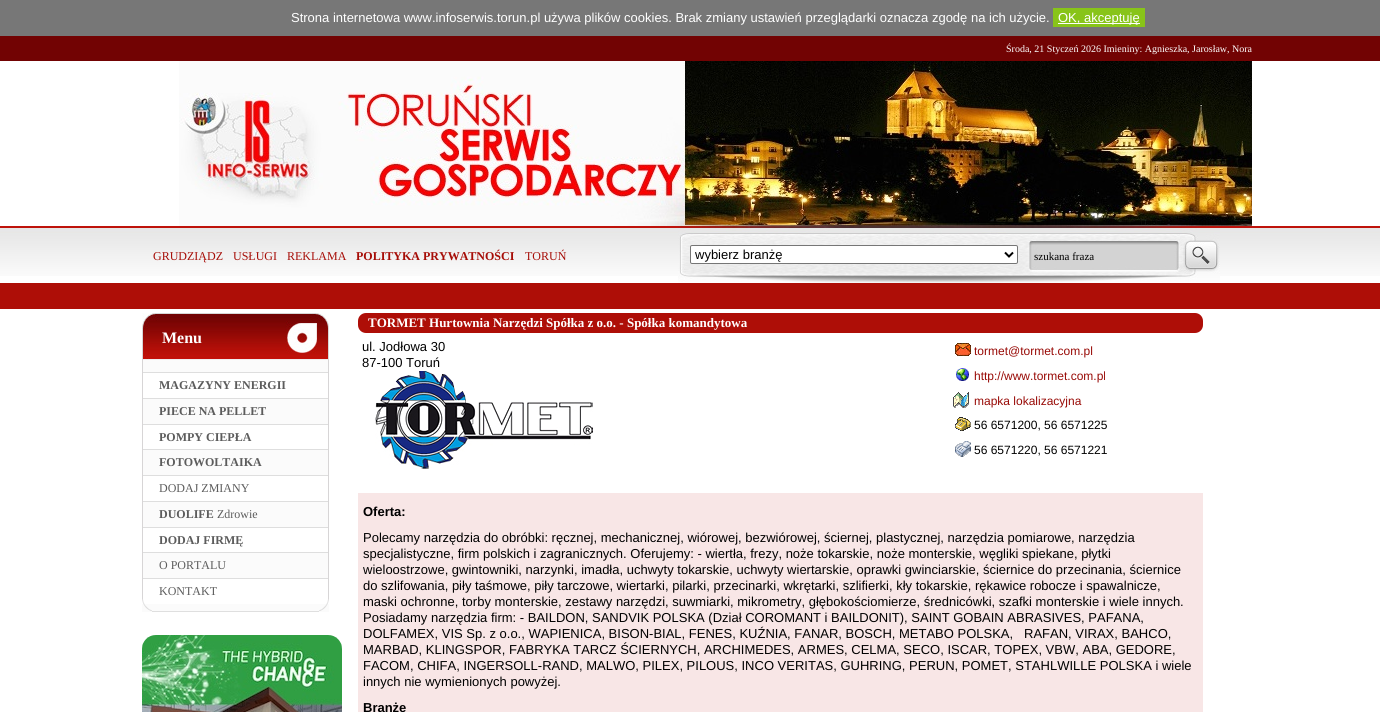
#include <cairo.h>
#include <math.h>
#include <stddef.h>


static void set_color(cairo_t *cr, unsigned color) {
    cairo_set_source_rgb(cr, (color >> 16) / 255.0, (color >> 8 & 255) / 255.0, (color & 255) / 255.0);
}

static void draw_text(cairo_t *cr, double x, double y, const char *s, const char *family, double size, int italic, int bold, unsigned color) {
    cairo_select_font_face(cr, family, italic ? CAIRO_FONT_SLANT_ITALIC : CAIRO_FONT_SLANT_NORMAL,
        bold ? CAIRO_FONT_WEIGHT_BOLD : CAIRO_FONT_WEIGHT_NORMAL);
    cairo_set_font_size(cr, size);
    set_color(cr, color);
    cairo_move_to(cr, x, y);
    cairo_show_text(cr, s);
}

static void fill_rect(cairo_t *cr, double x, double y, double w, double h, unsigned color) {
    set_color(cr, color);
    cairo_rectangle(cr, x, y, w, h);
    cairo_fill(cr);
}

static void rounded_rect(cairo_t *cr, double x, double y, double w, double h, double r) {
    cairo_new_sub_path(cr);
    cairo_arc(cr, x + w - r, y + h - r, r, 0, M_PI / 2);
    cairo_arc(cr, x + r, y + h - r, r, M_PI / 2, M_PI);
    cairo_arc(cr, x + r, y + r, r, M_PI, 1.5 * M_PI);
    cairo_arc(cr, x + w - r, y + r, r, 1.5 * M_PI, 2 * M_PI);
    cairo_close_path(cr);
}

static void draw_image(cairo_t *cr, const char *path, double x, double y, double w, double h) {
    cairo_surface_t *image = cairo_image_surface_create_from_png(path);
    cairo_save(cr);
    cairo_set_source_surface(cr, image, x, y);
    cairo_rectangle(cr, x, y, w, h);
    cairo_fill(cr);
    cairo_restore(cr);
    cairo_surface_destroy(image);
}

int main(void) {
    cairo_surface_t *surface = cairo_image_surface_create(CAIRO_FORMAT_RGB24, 1380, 712);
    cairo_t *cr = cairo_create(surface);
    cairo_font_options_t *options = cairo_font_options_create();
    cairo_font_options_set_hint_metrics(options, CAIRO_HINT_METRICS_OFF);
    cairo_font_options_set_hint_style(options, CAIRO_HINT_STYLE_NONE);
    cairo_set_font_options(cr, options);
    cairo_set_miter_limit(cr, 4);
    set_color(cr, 0xFFFFFF);
    cairo_paint(cr);
    fill_rect(cr, 0, 0, 1380, 36, 0x777777);
    draw_text(cr, 291, 22, "Strona internetowa www.infoserwis.torun.pl używa plików cookies. Brak zmiany ustawień przeglądarki oznacza zgodę na ich użycie.", "Liberation Sans", 13, 0, 0, 0xFFFFFF);
    fill_rect(cr, 1053, 8, 92, 19, 0x88C419);
    fill_rect(cr, 1058, 23, 82, 1, 0xFFFFFF);
    draw_text(cr, 1058, 22, "OK, akceptuję", "Liberation Sans", 13, 0, 0, 0xFFFFFF);
    fill_rect(cr, 0, 36, 1380, 25, 0x720303);
    draw_text(cr, 1006, 52, "Środa, 21 Styczeń 2026 Imieniny: Agnieszka, Jarosław, Nora", "Liberation Serif", 10, 0, 0, 0xFFFFFF);
    draw_image(cr, "assets/img1.png", 179, 61, 1073, 165);
    draw_image(cr, "assets/img2.png", 0, 226, 1380, 50);
    draw_text(cr, 153, 260, "GRUDZIĄDZ", "Liberation Serif", 12, 0, 0, 0xA60D07);
    draw_text(cr, 233, 260, "USŁUGI", "Liberation Serif", 12, 0, 0, 0xA60D07);
    draw_text(cr, 287, 260, "REKLAMA", "Liberation Serif", 12, 0, 0, 0xA60D07);
    draw_text(cr, 356, 260, "POLITYKA PRYWATNOŚCI", "Liberation Serif", 12, 0, 1, 0xA60D07);
    draw_text(cr, 525, 260, "TORUŃ", "Liberation Serif", 12, 0, 0, 0xA60D07);
    draw_image(cr, "assets/img3.png", 678, 226, 542, 57);
    set_color(cr, 0xFFFFFF);
    rounded_rect(cr, 690.5, 245.5, 327, 18, 1.5);
    cairo_fill_preserve(cr);
    set_color(cr, 0x767676);
    cairo_set_line_width(cr, 1);
    cairo_stroke(cr);
    cairo_new_path(cr);
    cairo_move_to(cr, 1005, 252.5);
    cairo_line_to(cr, 1009, 256.5);
    cairo_line_to(cr, 1013, 252.5);
    set_color(cr, 0x000000);
    cairo_set_line_width(cr, 2);
    cairo_stroke(cr);
    draw_text(cr, 695, 259, "wybierz branżę", "Liberation Sans", 13, 0, 0, 0x000000);
    draw_text(cr, 1034, 260, "szukana fraza", "Liberation Serif", 11, 0, 0, 0x000000);
    fill_rect(cr, 0, 283, 1380, 26, 0xAE0E07);
    draw_image(cr, "assets/img4.png", 158, 313, 127, 47);
    draw_image(cr, "assets/img5.png", 142, 313, 16, 47);
    draw_image(cr, "assets/img6.png", 285, 313, 44, 47);
    draw_text(cr, 162, 343, "Menu", "Liberation Serif", 16, 0, 1, 0xFFFFFF);
    fill_rect(cr, 143, 360, 185, 251, 0xFBFBFB);
    fill_rect(cr, 151, 611, 169, 1, 0xDFDFDF);
    fill_rect(cr, 328, 360, 1, 243, 0xD7D5D6);
    fill_rect(cr, 142, 360, 1, 243, 0xD7D5D6);
    fill_rect(cr, 143, 373, 185, 25, 0xFFFFFF);
    fill_rect(cr, 143, 372, 185, 1, 0xDEDEDE);
    draw_text(cr, 159, 389, "MAGAZYNY ENERGII", "Liberation Serif", 12, 0, 1, 0x5C5C5C);
    fill_rect(cr, 143, 398, 185, 1, 0xDEDEDE);
    draw_text(cr, 159, 415, "PIECE NA PELLET", "Liberation Serif", 12, 0, 1, 0x5C5C5C);
    fill_rect(cr, 143, 425, 185, 24, 0xFFFFFF);
    fill_rect(cr, 143, 424, 185, 1, 0xDEDEDE);
    draw_text(cr, 159, 441, "POMPY CIEPŁA", "Liberation Serif", 12, 0, 1, 0x5C5C5C);
    fill_rect(cr, 143, 449, 185, 1, 0xDEDEDE);
    draw_text(cr, 159, 466, "FOTOWOLTAIKA", "Liberation Serif", 12, 0, 1, 0x5C5C5C);
    fill_rect(cr, 143, 476, 185, 25, 0xFFFFFF);
    fill_rect(cr, 143, 475, 185, 1, 0xDEDEDE);
    draw_text(cr, 159, 492, "DODAJ ZMIANY", "Liberation Serif", 12, 0, 0, 0x5C5C5C);
    fill_rect(cr, 143, 501, 185, 1, 0xDEDEDE);
    draw_text(cr, 159, 518, "DUOLIFE", "Liberation Serif", 12, 0, 1, 0x5C5C5C);
    draw_text(cr, 217, 518, "Zdrowie", "Liberation Serif", 12, 0, 0, 0x5C5C5C);
    fill_rect(cr, 143, 528, 185, 24, 0xFFFFFF);
    fill_rect(cr, 143, 527, 185, 1, 0xDEDEDE);
    draw_text(cr, 159, 544, "DODAJ FIRMĘ", "Liberation Serif", 12, 0, 1, 0x5C5C5C);
    fill_rect(cr, 143, 552, 185, 1, 0xDEDEDE);
    draw_text(cr, 159, 569, "O PORTALU", "Liberation Serif", 12, 0, 0, 0x5C5C5C);
    fill_rect(cr, 143, 579, 185, 25, 0xFFFFFF);
    fill_rect(cr, 143, 578, 185, 1, 0xDEDEDE);
    draw_text(cr, 159, 595, "KONTAKT", "Liberation Serif", 12, 0, 0, 0x5C5C5C);
    draw_image(cr, "assets/img7.png", 142, 599, 10, 13);
    draw_image(cr, "assets/img8.png", 319, 599, 10, 13);
    draw_image(cr, "assets/img9.png", 142, 635, 200, 77);
    set_color(cr, 0xAE0E07);
    rounded_rect(cr, 358, 313, 845, 20, 8);
    cairo_fill(cr);
    draw_text(cr, 368, 327, "TORMET Hurtownia Narzędzi Spółka z o.o. - Spółka komandytowa", "Liberation Serif", 13, 0, 1, 0xFFFFFF);
    draw_text(cr, 362, 351, "ul. Jodłowa 30", "Liberation Sans", 13, 0, 0, 0x000000);
    draw_text(cr, 362, 367, "87-100 Toruń", "Liberation Sans", 13, 0, 0, 0x000000);
    draw_image(cr, "assets/img10.png", 375, 371, 218, 98);
    draw_image(cr, "assets/img11.png", 955, 343, 16, 13);
    draw_text(cr, 974, 355, "tormet@tormet.com.pl", "Liberation Sans", 12, 0, 0, 0x980A06);
    draw_image(cr, "assets/img12.png", 956, 368, 13, 13);
    draw_text(cr, 974, 380, "http://www.tormet.com.pl", "Liberation Sans", 12, 0, 0, 0x980A06);
    draw_image(cr, "assets/img13.png", 953, 392, 16, 16);
    draw_text(cr, 974, 405, "mapka lokalizacyjna", "Liberation Sans", 12, 0, 0, 0x980A06);
    draw_image(cr, "assets/img14.png", 955, 417, 16, 14);
    draw_text(cr, 974, 429, "56 6571200, 56 6571225", "Liberation Sans", 12, 0, 0, 0x000000);
    draw_image(cr, "assets/img15.png", 955, 441, 16, 16);
    draw_text(cr, 974, 454, "56 6571220, 56 6571221", "Liberation Sans", 12, 0, 0, 0x000000);
    fill_rect(cr, 358, 493, 845, 219, 0xF8E6E6);
    draw_text(cr, 363, 516, "Oferta:", "Liberation Sans", 13, 0, 1, 0x000000);
    draw_text(cr, 363, 542, "Polecamy narzędzia do obróbki: ręcznej, mechanicznej, wiórowej, bezwiórowej, ściernej, plastycznej, narzędzia pomiarowe, narzędzia", "Liberation Sans", 13, 0, 0, 0x000000);
    draw_text(cr, 363, 558, "specjalistyczne, firm polskich i zagranicznych. Oferujemy: - wiertła, frezy, noże tokarskie, noże monterskie, węgliki spiekane, płytki", "Liberation Sans", 13, 0, 0, 0x000000);
    draw_text(cr, 363, 574, "wieloostrzowe, gwintowniki, narzynki, imadła, uchwyty tokarskie, uchwyty wiertarskie, oprawki gwinciarskie, ściernice do przecinania, ściernice", "Liberation Sans", 13, 0, 0, 0x000000);
    draw_text(cr, 363, 590, "do szlifowania, piły taśmowe, piły tarczowe, wiertarki, pilarki, przecinarki, wkrętarki, szlifierki, kły tokarskie, rękawice robocze i spawalnicze,", "Liberation Sans", 13, 0, 0, 0x000000);
    draw_text(cr, 363, 606, "maski ochronne, torby monterskie, zestawy narzędzi, suwmiarki, mikrometry, głębokościomierze, średnicówki, szafki monterskie i wiele innych.", "Liberation Sans", 13, 0, 0, 0x000000);
    draw_text(cr, 363, 622, "Posiadamy narzędzia firm: - BAILDON, SANDVIK POLSKA (Dział COROMANT i BAILDONIT), SAINT GOBAIN ABRASIVES, PAFANA,", "Liberation Sans", 13, 0, 0, 0x000000);
    draw_text(cr, 363, 638, "DOLFAMEX, VIS Sp. z o.o., WAPIENICA, BISON-BIAL, FENES, KUŹNIA, FANAR, BOSCH, METABO POLSKA,   RAFAN, VIRAX, BAHCO,", "Liberation Sans", 13, 0, 0, 0x000000);
    draw_text(cr, 363, 654, "MARBAD, KLINGSPOR, FABRYKA TARCZ ŚCIERNYCH, ARCHIMEDES, ARMES, CELMA, SECO, ISCAR, TOPEX, VBW, ABA, GEDORE,", "Liberation Sans", 13, 0, 0, 0x000000);
    draw_text(cr, 363, 670, "FACOM, CHIFA, INGERSOLL-RAND, MALWO, PILEX, PILOUS, INCO VERITAS, GUHRING, PERUN, POMET, STAHLWILLE POLSKA i wiele", "Liberation Sans", 13, 0, 0, 0x000000);
    draw_text(cr, 363, 686, "innych nie wymienionych powyżej.", "Liberation Sans", 13, 0, 0, 0x000000);
    draw_text(cr, 363, 712, "Branże", "Liberation Sans", 13, 0, 1, 0x000000);
    cairo_surface_write_to_png(surface, "output.png");
    cairo_font_options_destroy(options);
    cairo_destroy(cr);
    cairo_surface_destroy(surface);
    return 0;
}
